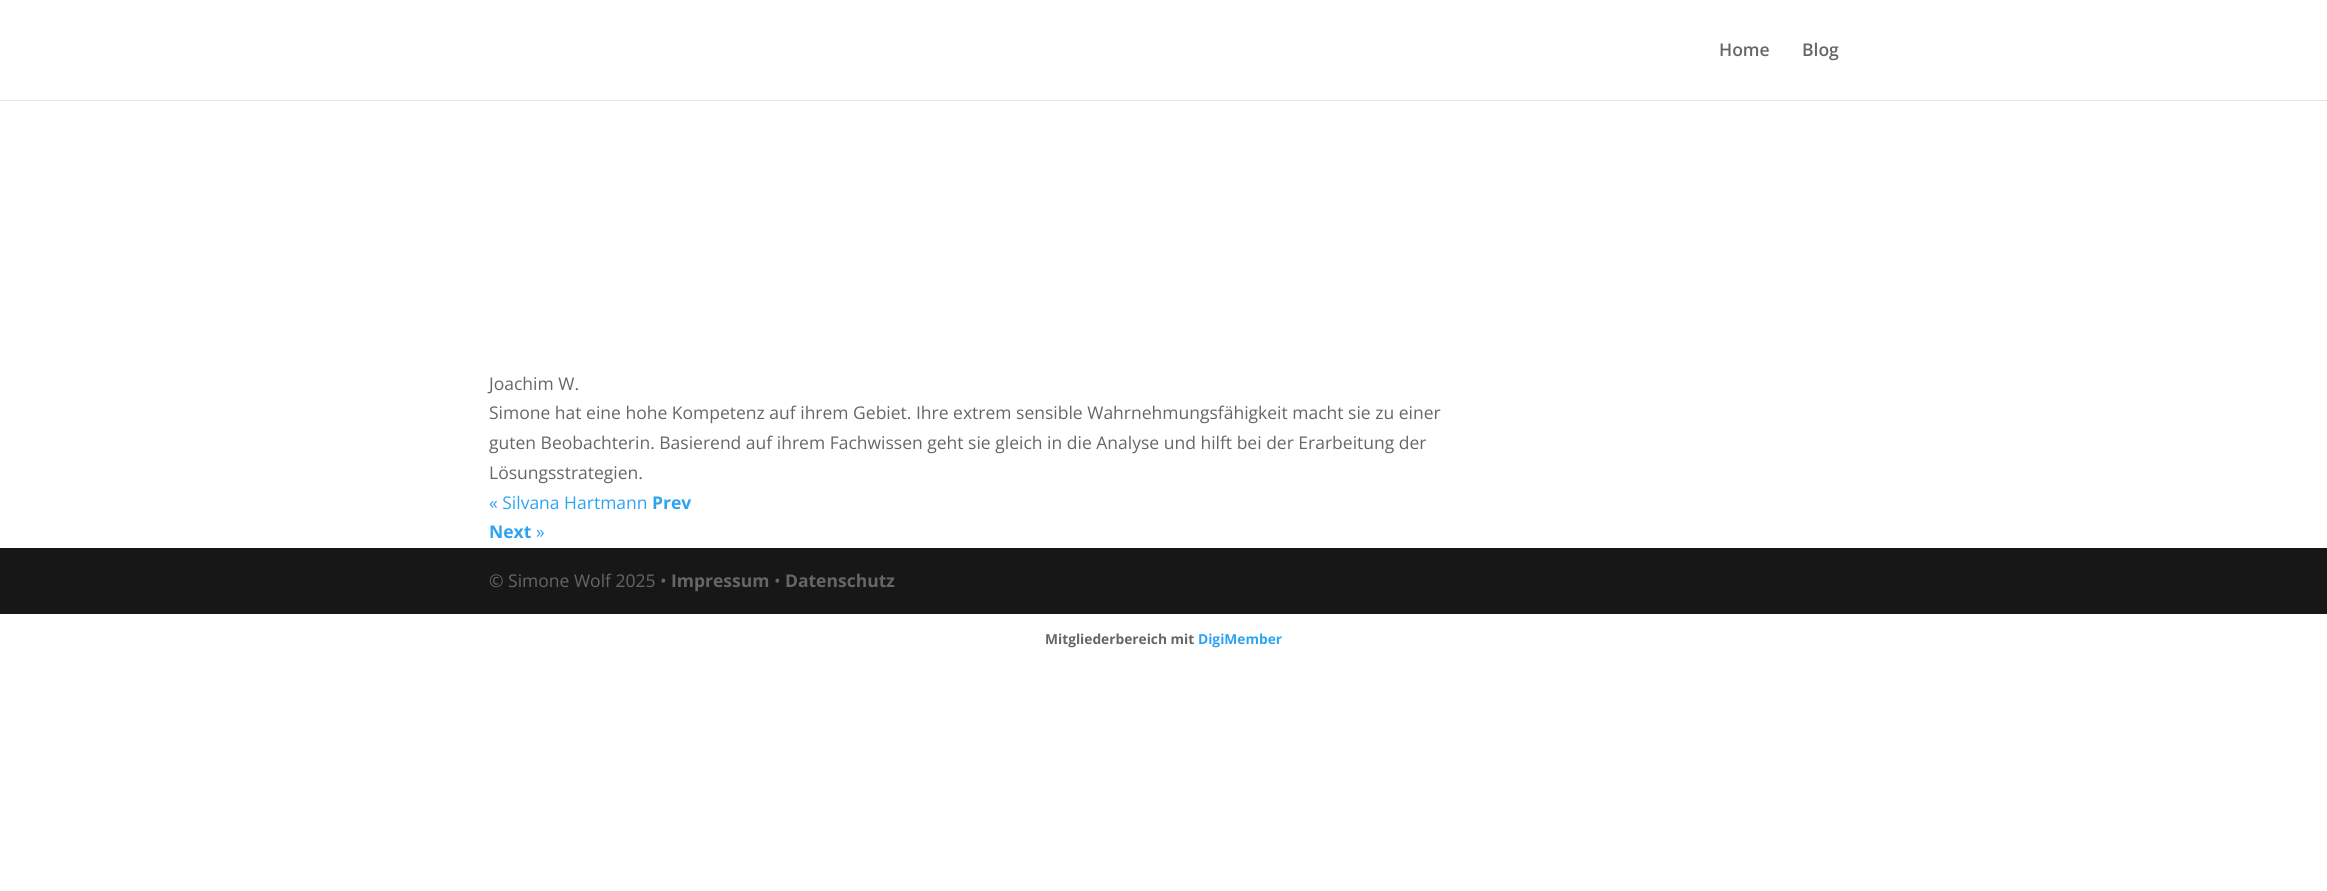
#include <cairo.h>
#include <math.h>
#include <stddef.h>


static void set_color(cairo_t *cr, unsigned color) {
    cairo_set_source_rgb(cr, (color >> 16) / 255.0, (color >> 8 & 255) / 255.0, (color & 255) / 255.0);
}

static void draw_text(cairo_t *cr, double x, double y, const char *s, const char *family, double size, int italic, int bold, unsigned color) {
    cairo_select_font_face(cr, family, italic ? CAIRO_FONT_SLANT_ITALIC : CAIRO_FONT_SLANT_NORMAL,
        bold ? CAIRO_FONT_WEIGHT_BOLD : CAIRO_FONT_WEIGHT_NORMAL);
    cairo_set_font_size(cr, size);
    set_color(cr, color);
    cairo_move_to(cr, x, y);
    cairo_show_text(cr, s);
}

static void fill_rect(cairo_t *cr, double x, double y, double w, double h, unsigned color) {
    set_color(cr, color);
    cairo_rectangle(cr, x, y, w, h);
    cairo_fill(cr);
}

int main(void) {
    cairo_surface_t *surface = cairo_image_surface_create(CAIRO_FORMAT_RGB24, 2327, 891);
    cairo_t *cr = cairo_create(surface);
    cairo_font_options_t *options = cairo_font_options_create();
    cairo_font_options_set_hint_metrics(options, CAIRO_HINT_METRICS_OFF);
    cairo_font_options_set_hint_style(options, CAIRO_HINT_STYLE_NONE);
    cairo_set_font_options(cr, options);
    cairo_set_miter_limit(cr, 4);
    set_color(cr, 0xFFFFFF);
    cairo_paint(cr);
    set_color(cr, 0xE6E6E6);
    cairo_new_path(cr);
    cairo_move_to(cr, 0, 100);
    cairo_line_to(cr, 0, 101);
    cairo_line_to(cr, 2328, 101);
    cairo_line_to(cr, 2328, 1);
    cairo_line_to(cr, 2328, 100);
    cairo_close_path(cr);
    cairo_fill(cr);
    draw_text(cr, 1719, 56, "Home", "Open Sans SemiBold", 17.5, 0, 0, 0x666666);
    draw_text(cr, 1802, 56, "Blog", "Open Sans SemiBold", 17.5, 0, 0, 0x666666);
    draw_text(cr, 489, 390, "Joachim W.", "Open Sans", 17.5, 0, 0, 0x666666);
    draw_text(cr, 489, 419, "Simone hat eine hohe Kompetenz auf ihrem Gebiet. Ihre extrem sensible Wahrnehmungsfähigkeit macht sie zu einer", "Open Sans", 17.5, 0, 0, 0x666666);
    draw_text(cr, 489, 449, "guten Beobachterin. Basierend auf ihrem Fachwissen geht sie gleich in die Analyse und hilft bei der Erarbeitung der", "Open Sans", 17.5, 0, 0, 0x666666);
    draw_text(cr, 489, 479, "Lösungsstrategien.", "Open Sans", 17.5, 0, 0, 0x666666);
    draw_text(cr, 489, 509, "« Silvana Hartmann", "Open Sans", 17.5, 0, 0, 0x2EA3F2);
    draw_text(cr, 652, 509, "Prev", "Open Sans", 17.5, 0, 1, 0x2EA3F2);
    draw_text(cr, 489, 538, "Next", "Open Sans", 17.5, 0, 1, 0x2EA3F2);
    draw_text(cr, 536, 538, "»", "Open Sans", 17.5, 0, 0, 0x2EA3F2);
    fill_rect(cr, 0, 548, 2327, 66, 0x171717);
    draw_text(cr, 489, 587, "© Simone Wolf 2025 •", "Open Sans", 17.5, 0, 0, 0x666666);
    draw_text(cr, 671, 587, "Impressum", "Open Sans", 17.5, 0, 1, 0x666666);
    draw_text(cr, 774, 587, "•", "Open Sans", 17.5, 0, 0, 0x666666);
    draw_text(cr, 785, 587, "Datenschutz", "Open Sans", 17.5, 0, 1, 0x666666);
    draw_text(cr, 1045, 644, "Mitgliederbereich mit", "Open Sans", 13.75, 0, 1, 0x666666);
    draw_text(cr, 1198, 644, "DigiMember", "Open Sans", 13.75, 0, 1, 0x2EA3F2);
    cairo_surface_write_to_png(surface, "output.png");
    cairo_font_options_destroy(options);
    cairo_destroy(cr);
    cairo_surface_destroy(surface);
    return 0;
}
